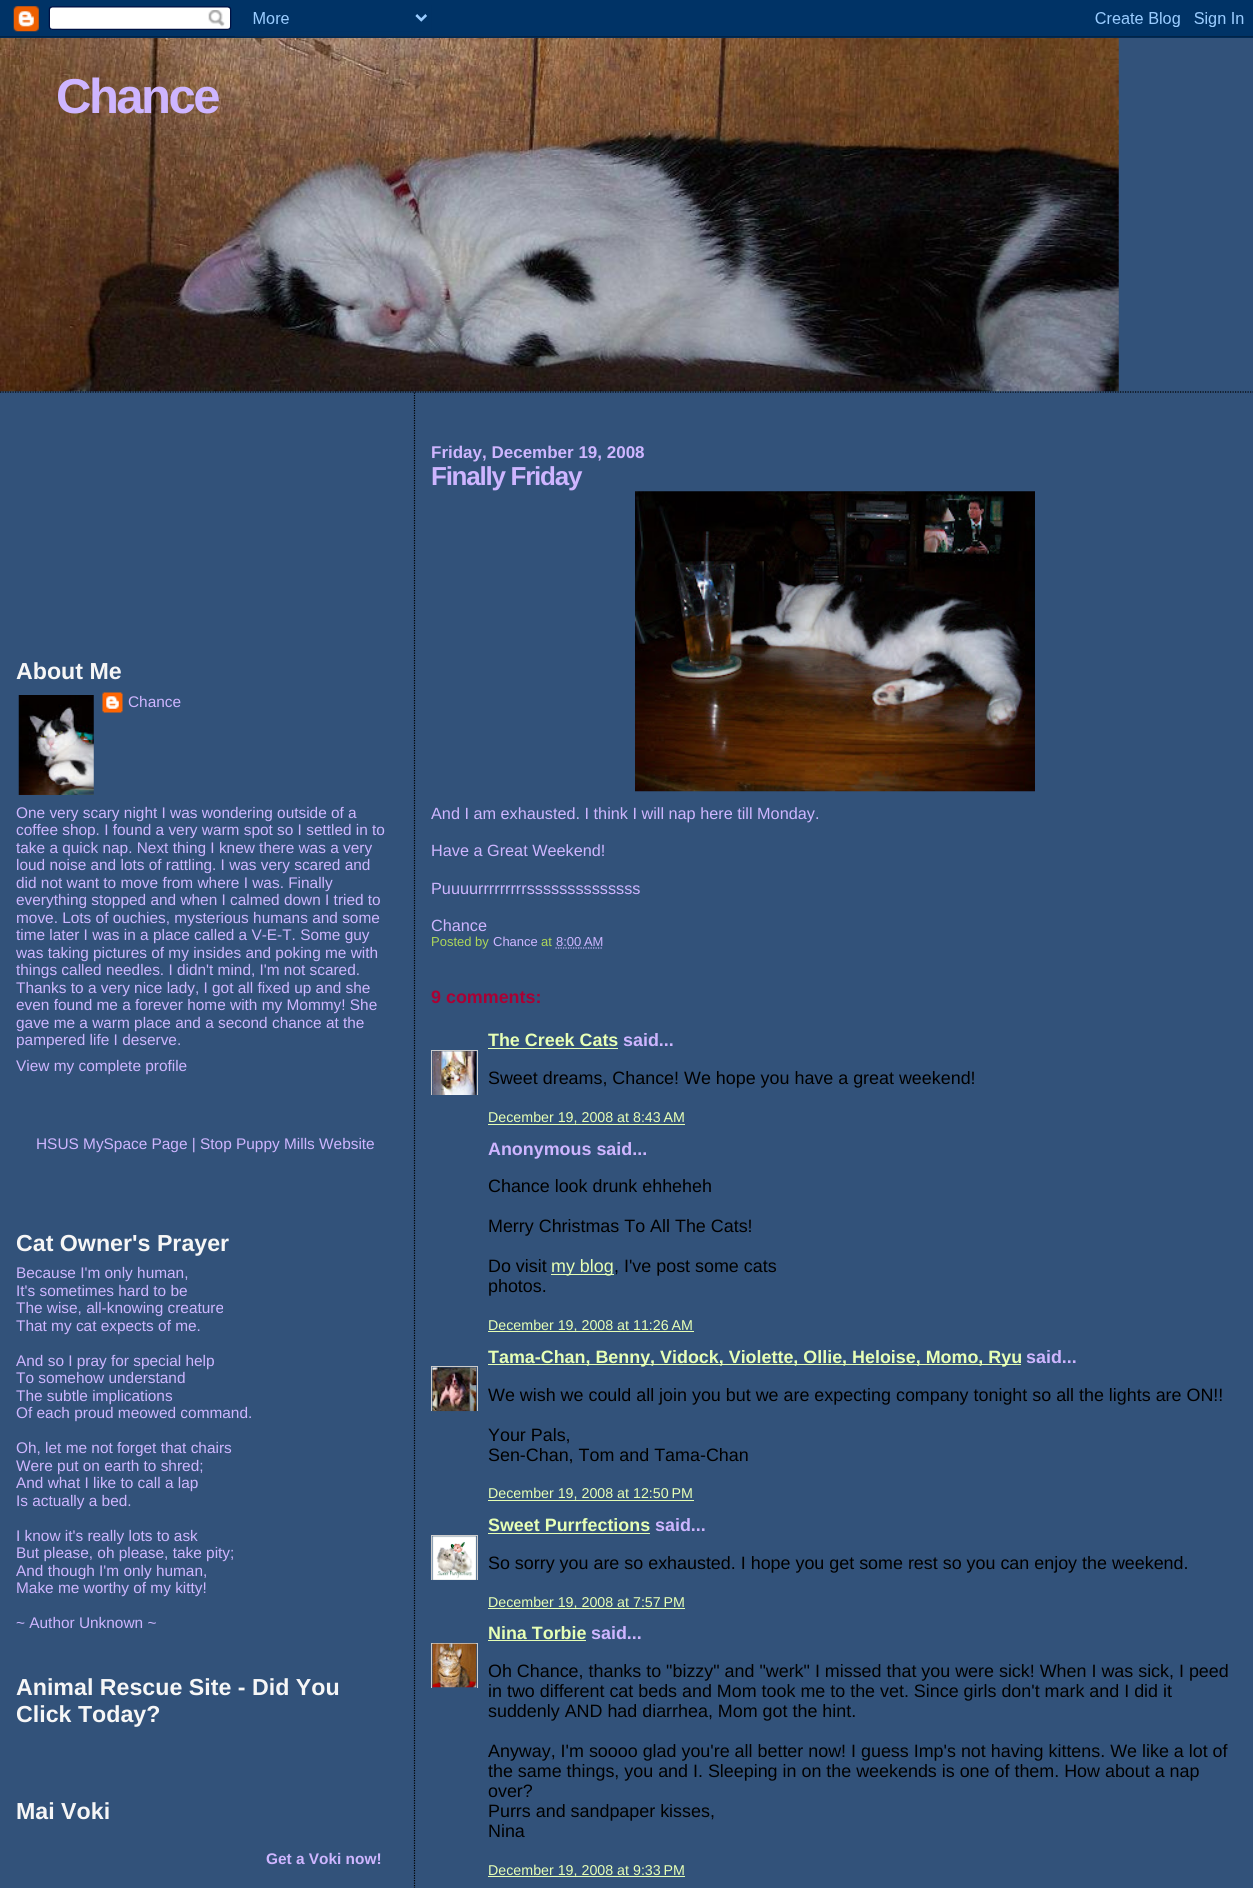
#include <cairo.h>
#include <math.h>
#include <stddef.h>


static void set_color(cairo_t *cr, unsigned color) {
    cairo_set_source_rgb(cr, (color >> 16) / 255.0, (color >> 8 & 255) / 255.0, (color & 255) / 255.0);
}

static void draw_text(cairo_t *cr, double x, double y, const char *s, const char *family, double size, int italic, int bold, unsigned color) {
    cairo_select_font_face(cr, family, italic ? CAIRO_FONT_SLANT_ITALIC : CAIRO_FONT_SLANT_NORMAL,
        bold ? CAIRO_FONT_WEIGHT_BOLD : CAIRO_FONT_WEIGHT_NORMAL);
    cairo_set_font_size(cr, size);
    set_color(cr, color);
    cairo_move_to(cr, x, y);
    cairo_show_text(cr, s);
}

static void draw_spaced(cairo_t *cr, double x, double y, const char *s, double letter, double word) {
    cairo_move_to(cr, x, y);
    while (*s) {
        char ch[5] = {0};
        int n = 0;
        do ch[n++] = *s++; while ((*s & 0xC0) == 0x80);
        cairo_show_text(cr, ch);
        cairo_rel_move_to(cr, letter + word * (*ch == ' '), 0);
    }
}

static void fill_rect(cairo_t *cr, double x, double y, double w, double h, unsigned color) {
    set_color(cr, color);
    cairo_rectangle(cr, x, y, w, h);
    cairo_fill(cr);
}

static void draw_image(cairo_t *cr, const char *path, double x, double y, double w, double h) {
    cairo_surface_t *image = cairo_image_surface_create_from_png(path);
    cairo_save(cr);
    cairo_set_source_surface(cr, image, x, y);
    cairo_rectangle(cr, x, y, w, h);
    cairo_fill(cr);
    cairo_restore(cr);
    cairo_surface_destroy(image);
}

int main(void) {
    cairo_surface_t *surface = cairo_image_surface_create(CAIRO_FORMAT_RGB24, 1253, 1888);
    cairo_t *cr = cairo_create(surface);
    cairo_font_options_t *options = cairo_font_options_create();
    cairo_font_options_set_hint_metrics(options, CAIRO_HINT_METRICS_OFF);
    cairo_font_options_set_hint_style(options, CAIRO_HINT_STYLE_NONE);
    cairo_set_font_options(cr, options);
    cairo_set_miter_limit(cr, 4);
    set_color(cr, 0x32527A);
    cairo_paint(cr);
    draw_image(cr, "assets/img1.png", 0, 0, 1253, 38);
    cairo_new_path(cr);
    cairo_move_to(cr, 0, 392);
    cairo_line_to(cr, 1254, 392);
    set_color(cr, 0x000000);
    cairo_set_line_width(cr, 1.2);
    cairo_set_dash(cr, (double[]){1.25, 1.25}, 2, 0);
    cairo_stroke(cr);
    draw_image(cr, "assets/img2.png", 0, 38, 1119, 354);
    cairo_select_font_face(cr, "Liberation Sans", CAIRO_FONT_SLANT_NORMAL, CAIRO_FONT_WEIGHT_BOLD);
    cairo_set_font_size(cr, 49);
    set_color(cr, 0xCEB5FF);
    draw_spaced(cr, 56, 113, "Chance", -2.5, 0);
    draw_text(cr, 16, 679, "About Me", "Liberation Sans", 23.2, 0, 1, 0xF6F6F6);
    draw_image(cr, "assets/img3.png", 102, 692, 21, 21);
    draw_text(cr, 128, 707, "Chance", "Liberation Sans", 15.4, 0, 0, 0xCEB5FF);
    draw_text(cr, 16, 818, "One very scary night I was wondering outside of a", "Liberation Sans", 15.4, 0, 0, 0xCEB5FF);
    draw_text(cr, 16, 835, "coffee shop. I found a very warm spot so I settled in to", "Liberation Sans", 15.4, 0, 0, 0xCEB5FF);
    draw_text(cr, 16, 853, "take a quick nap. Next thing I knew there was a very", "Liberation Sans", 15.4, 0, 0, 0xCEB5FF);
    draw_text(cr, 16, 870, "loud noise and lots of rattling. I was very scared and", "Liberation Sans", 15.4, 0, 0, 0xCEB5FF);
    draw_text(cr, 16, 888, "did not want to move from where I was. Finally", "Liberation Sans", 15.4, 0, 0, 0xCEB5FF);
    draw_text(cr, 16, 905, "everything stopped and when I calmed down I tried to", "Liberation Sans", 15.4, 0, 0, 0xCEB5FF);
    draw_text(cr, 16, 923, "move. Lots of ouchies, mysterious humans and some", "Liberation Sans", 15.4, 0, 0, 0xCEB5FF);
    draw_text(cr, 16, 940, "time later I was in a place called a V-E-T. Some guy", "Liberation Sans", 15.4, 0, 0, 0xCEB5FF);
    draw_text(cr, 16, 958, "was taking pictures of my insides and poking me with", "Liberation Sans", 15.4, 0, 0, 0xCEB5FF);
    draw_text(cr, 16, 975, "things called needles. I didn't mind, I'm not scared.", "Liberation Sans", 15.4, 0, 0, 0xCEB5FF);
    draw_text(cr, 16, 993, "Thanks to a very nice lady, I got all fixed up and she", "Liberation Sans", 15.4, 0, 0, 0xCEB5FF);
    draw_text(cr, 16, 1010, "even found me a forever home with my Mommy! She", "Liberation Sans", 15.4, 0, 0, 0xCEB5FF);
    draw_text(cr, 16, 1028, "gave me a warm place and a second chance at the", "Liberation Sans", 15.4, 0, 0, 0xCEB5FF);
    draw_text(cr, 16, 1045, "pampered life I deserve.", "Liberation Sans", 15.4, 0, 0, 0xCEB5FF);
    draw_image(cr, "assets/img4.png", 18, 695, 76, 100);
    draw_text(cr, 16, 1071, "View my complete profile", "Liberation Sans", 15.4, 0, 0, 0xCEB5FF);
    draw_text(cr, 36, 1149, "HSUS MySpace Page | Stop Puppy Mills Website", "Liberation Sans", 15.4, 0, 0, 0xCEB5FF);
    draw_text(cr, 16, 1251, "Cat Owner's Prayer", "Liberation Sans", 23.2, 0, 1, 0xF6F6F6);
    draw_text(cr, 16, 1278, "Because I'm only human,", "Liberation Sans", 15.4, 0, 0, 0xCEB5FF);
    draw_text(cr, 16, 1296, "It's sometimes hard to be", "Liberation Sans", 15.4, 0, 0, 0xCEB5FF);
    draw_text(cr, 16, 1313, "The wise, all-knowing creature", "Liberation Sans", 15.4, 0, 0, 0xCEB5FF);
    draw_text(cr, 16, 1331, "That my cat expects of me.", "Liberation Sans", 15.4, 0, 0, 0xCEB5FF);
    draw_text(cr, 16, 1366, "And so I pray for special help", "Liberation Sans", 15.4, 0, 0, 0xCEB5FF);
    draw_text(cr, 16, 1383, "To somehow understand", "Liberation Sans", 15.4, 0, 0, 0xCEB5FF);
    draw_text(cr, 16, 1401, "The subtle implications", "Liberation Sans", 15.4, 0, 0, 0xCEB5FF);
    draw_text(cr, 16, 1418, "Of each proud meowed command.", "Liberation Sans", 15.4, 0, 0, 0xCEB5FF);
    draw_text(cr, 16, 1453, "Oh, let me not forget that chairs", "Liberation Sans", 15.4, 0, 0, 0xCEB5FF);
    draw_text(cr, 16, 1471, "Were put on earth to shred;", "Liberation Sans", 15.4, 0, 0, 0xCEB5FF);
    draw_text(cr, 16, 1488, "And what I like to call a lap", "Liberation Sans", 15.4, 0, 0, 0xCEB5FF);
    draw_text(cr, 16, 1506, "Is actually a bed.", "Liberation Sans", 15.4, 0, 0, 0xCEB5FF);
    draw_text(cr, 16, 1541, "I know it's really lots to ask", "Liberation Sans", 15.4, 0, 0, 0xCEB5FF);
    draw_text(cr, 16, 1558, "But please, oh please, take pity;", "Liberation Sans", 15.4, 0, 0, 0xCEB5FF);
    draw_text(cr, 16, 1576, "And though I'm only human,", "Liberation Sans", 15.4, 0, 0, 0xCEB5FF);
    draw_text(cr, 16, 1593, "Make me worthy of my kitty!", "Liberation Sans", 15.4, 0, 0, 0xCEB5FF);
    draw_text(cr, 16, 1628, "~ Author Unknown ~", "Liberation Sans", 15.4, 0, 0, 0xCEB5FF);
    draw_text(cr, 16, 1695, "Animal Rescue Site - Did You", "Liberation Sans", 23.2, 0, 1, 0xF6F6F6);
    draw_text(cr, 16, 1722, "Click Today?", "Liberation Sans", 23.2, 0, 1, 0xF6F6F6);
    draw_text(cr, 16, 1819, "Mai Voki", "Liberation Sans", 23.2, 0, 1, 0xF6F6F6);
    draw_text(cr, 266, 1864, "Get a Voki now!", "Liberation Sans", 15.4, 0, 1, 0xCEB5FF);
    cairo_new_path(cr);
    cairo_move_to(cr, 414.5, 392.5);
    cairo_line_to(cr, 414.5, 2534);
    set_color(cr, 0x000000);
    cairo_stroke(cr);
    draw_text(cr, 431, 458, "Friday, December 19, 2008", "Liberation Sans", 17, 0, 1, 0xCEB5FF);
    cairo_set_font_size(cr, 26);
    draw_spaced(cr, 431, 485, "Finally Friday", -1.25, 0);
    draw_image(cr, "assets/img5.png", 635, 491, 400, 301);
    draw_text(cr, 431, 819, "And I am exhausted. I think I will nap here till Monday.", "Liberation Sans", 16.25, 0, 0, 0xCEB5FF);
    draw_text(cr, 431, 856, "Have a Great Weekend!", "Liberation Sans", 16.25, 0, 0, 0xCEB5FF);
    draw_text(cr, 431, 894, "Puuuurrrrrrrrrssssssssssssss", "Liberation Sans", 16.25, 0, 0, 0xCEB5FF);
    draw_text(cr, 431, 931, "Chance", "Liberation Sans", 16.25, 0, 0, 0xCEB5FF);
    draw_text(cr, 431, 946, "Posted by", "Liberation Sans", 13, 0, 0, 0xADD65A);
    draw_text(cr, 493, 946, "Chance", "Liberation Sans", 13, 0, 0, 0xCEB5FF);
    draw_text(cr, 541, 946, "at", "Liberation Sans", 13, 0, 0, 0xADD65A);
    draw_text(cr, 556, 946, "8:00 AM", "Liberation Sans", 13, 0, 0, 0xCEB5FF);
    cairo_new_path(cr);
    cairo_move_to(cr, 555.5, 948);
    cairo_line_to(cr, 603, 948);
    cairo_stroke(cr);
    draw_text(cr, 431, 1003, "9 comments:", "Liberation Sans", 17.9, 0, 1, 0xAA0033);
    draw_text(cr, 488, 1046, "The Creek Cats", "Liberation Sans", 17.9, 0, 1, 0xE6FFB5);
    fill_rect(cr, 488, 1048, 130, 1, 0xE6FFB5);
    draw_text(cr, 623, 1046, "said...", "Liberation Sans", 17.9, 0, 1, 0xCEB5FF);
    cairo_save(cr);
    cairo_rectangle(cr, 431, 1050, 47, 45);
    cairo_clip(cr);
    cairo_rectangle(cr, 431.5, 1050.5, 46, 45);
    set_color(cr, 0xCCCCCC);
    cairo_set_line_width(cr, 1);
    cairo_set_dash(cr, NULL, 0, 0);
    cairo_stroke(cr);
    cairo_restore(cr);
    draw_image(cr, "assets/img6.png", 432, 1051, 45, 44);
    draw_text(cr, 488, 1084, "Sweet dreams, Chance! We hope you have a great weekend!", "Liberation Sans", 17.9, 0, 0, 0x000000);
    draw_text(cr, 488, 1122, "December 19, 2008 at 8:43 AM", "Liberation Sans", 14.25, 0, 0, 0xE6FFB5);
    fill_rect(cr, 488, 1124, 197, 1, 0xE6FFB5);
    draw_text(cr, 488, 1155, "Anonymous said...", "Liberation Sans", 17.9, 0, 1, 0xCEB5FF);
    draw_text(cr, 488, 1192, "Chance look drunk ehheheh", "Liberation Sans", 17.9, 0, 0, 0x000000);
    draw_text(cr, 488, 1232, "Merry Christmas To All The Cats!", "Liberation Sans", 17.9, 0, 0, 0x000000);
    draw_text(cr, 488, 1272, "Do visit", "Liberation Sans", 17.9, 0, 0, 0x000000);
    fill_rect(cr, 551, 1274, 63, 1, 0xE6FFB5);
    draw_text(cr, 551, 1272, "my blog", "Liberation Sans", 17.9, 0, 0, 0xE6FFB5);
    draw_text(cr, 614, 1272, ", I've post some cats", "Liberation Sans", 17.9, 0, 0, 0x000000);
    draw_text(cr, 488, 1292, "photos.", "Liberation Sans", 17.9, 0, 0, 0x000000);
    fill_rect(cr, 488, 1331, 206, 1, 0xE6FFB5);
    draw_text(cr, 488, 1330, "December 19, 2008 at 11:26 AM", "Liberation Sans", 14.25, 0, 0, 0xE6FFB5);
    fill_rect(cr, 488, 1364, 533, 1, 0xE6FFB5);
    draw_text(cr, 488, 1363, "Tama-Chan, Benny, Vidock, Violette, Ollie, Heloise, Momo, Ryu", "Liberation Sans", 17.9, 0, 1, 0xE6FFB5);
    draw_text(cr, 1026, 1363, "said...", "Liberation Sans", 17.9, 0, 1, 0xCEB5FF);
    cairo_save(cr);
    cairo_rectangle(cr, 431, 1366, 47, 45);
    cairo_clip(cr);
    cairo_rectangle(cr, 431.5, 1366.5, 46, 46);
    set_color(cr, 0xCCCCCC);
    cairo_set_line_width(cr, 1);
    cairo_set_dash(cr, NULL, 0, 0);
    cairo_stroke(cr);
    cairo_restore(cr);
    draw_image(cr, "assets/img7.png", 432, 1367, 45, 45);
    draw_text(cr, 488, 1401, "We wish we could all join you but we are expecting company tonight so all the lights are ON!!", "Liberation Sans", 17.9, 0, 0, 0x000000);
    draw_text(cr, 488, 1441, "Your Pals,", "Liberation Sans", 17.9, 0, 0, 0x000000);
    draw_text(cr, 488, 1461, "Sen-Chan, Tom and Tama-Chan", "Liberation Sans", 17.9, 0, 0, 0x000000);
    draw_text(cr, 488, 1498, "December 19, 2008 at 12:50 PM", "Liberation Sans", 14.25, 0, 0, 0xE6FFB5);
    fill_rect(cr, 488, 1500, 206, 1, 0xE6FFB5);
    draw_text(cr, 488, 1531, "Sweet Purrfections", "Liberation Sans", 17.9, 0, 1, 0xE6FFB5);
    fill_rect(cr, 488, 1533, 162, 1, 0xE6FFB5);
    draw_text(cr, 655, 1531, "said...", "Liberation Sans", 17.9, 0, 1, 0xCEB5FF);
    cairo_save(cr);
    cairo_rectangle(cr, 431, 1535, 47, 45);
    cairo_clip(cr);
    cairo_rectangle(cr, 431.5, 1535.5, 46, 45);
    set_color(cr, 0xCCCCCC);
    cairo_set_line_width(cr, 1);
    cairo_set_dash(cr, NULL, 0, 0);
    cairo_stroke(cr);
    cairo_restore(cr);
    draw_image(cr, "assets/img8.png", 432, 1536, 45, 44);
    draw_text(cr, 488, 1569, "So sorry you are so exhausted. I hope you get some rest so you can enjoy the weekend.", "Liberation Sans", 17.9, 0, 0, 0x000000);
    fill_rect(cr, 488, 1608, 197, 1, 0xE6FFB5);
    draw_text(cr, 488, 1607, "December 19, 2008 at 7:57 PM", "Liberation Sans", 14.25, 0, 0, 0xE6FFB5);
    draw_text(cr, 488, 1639, "Nina Torbie", "Liberation Sans", 17.9, 0, 1, 0xE6FFB5);
    fill_rect(cr, 488, 1640, 98, 1, 0xE6FFB5);
    draw_text(cr, 591, 1639, "said...", "Liberation Sans", 17.9, 0, 1, 0xCEB5FF);
    cairo_save(cr);
    cairo_rectangle(cr, 431, 1643, 47, 45);
    cairo_clip(cr);
    cairo_rectangle(cr, 431.5, 1643.5, 46, 45);
    set_color(cr, 0xCCCCCC);
    cairo_set_line_width(cr, 1);
    cairo_set_dash(cr, NULL, 0, 0);
    cairo_stroke(cr);
    cairo_restore(cr);
    draw_image(cr, "assets/img9.png", 432, 1643, 45, 45);
    draw_text(cr, 488, 1677, "Oh Chance, thanks to \"bizzy\" and \"werk\" I missed that you were sick! When I was sick, I peed", "Liberation Sans", 17.9, 0, 0, 0x000000);
    draw_text(cr, 488, 1697, "in two different cat beds and Mom took me to the vet. Since girls don't mark and I did it", "Liberation Sans", 17.9, 0, 0, 0x000000);
    draw_text(cr, 488, 1717, "suddenly AND had diarrhea, Mom got the hint.", "Liberation Sans", 17.9, 0, 0, 0x000000);
    draw_text(cr, 488, 1757, "Anyway, I'm soooo glad you're all better now! I guess Imp's not having kittens. We like a lot of", "Liberation Sans", 17.9, 0, 0, 0x000000);
    draw_text(cr, 488, 1777, "the same things, you and I. Sleeping in on the weekends is one of them. How about a nap", "Liberation Sans", 17.9, 0, 0, 0x000000);
    draw_text(cr, 488, 1797, "over?", "Liberation Sans", 17.9, 0, 0, 0x000000);
    draw_text(cr, 488, 1817, "Purrs and sandpaper kisses,", "Liberation Sans", 17.9, 0, 0, 0x000000);
    draw_text(cr, 488, 1837, "Nina", "Liberation Sans", 17.9, 0, 0, 0x000000);
    fill_rect(cr, 488, 1876, 197, 1, 0xE6FFB5);
    draw_text(cr, 488, 1875, "December 19, 2008 at 9:33 PM", "Liberation Sans", 14.25, 0, 0, 0xE6FFB5);
    cairo_surface_write_to_png(surface, "output.png");
    cairo_font_options_destroy(options);
    cairo_destroy(cr);
    cairo_surface_destroy(surface);
    return 0;
}
